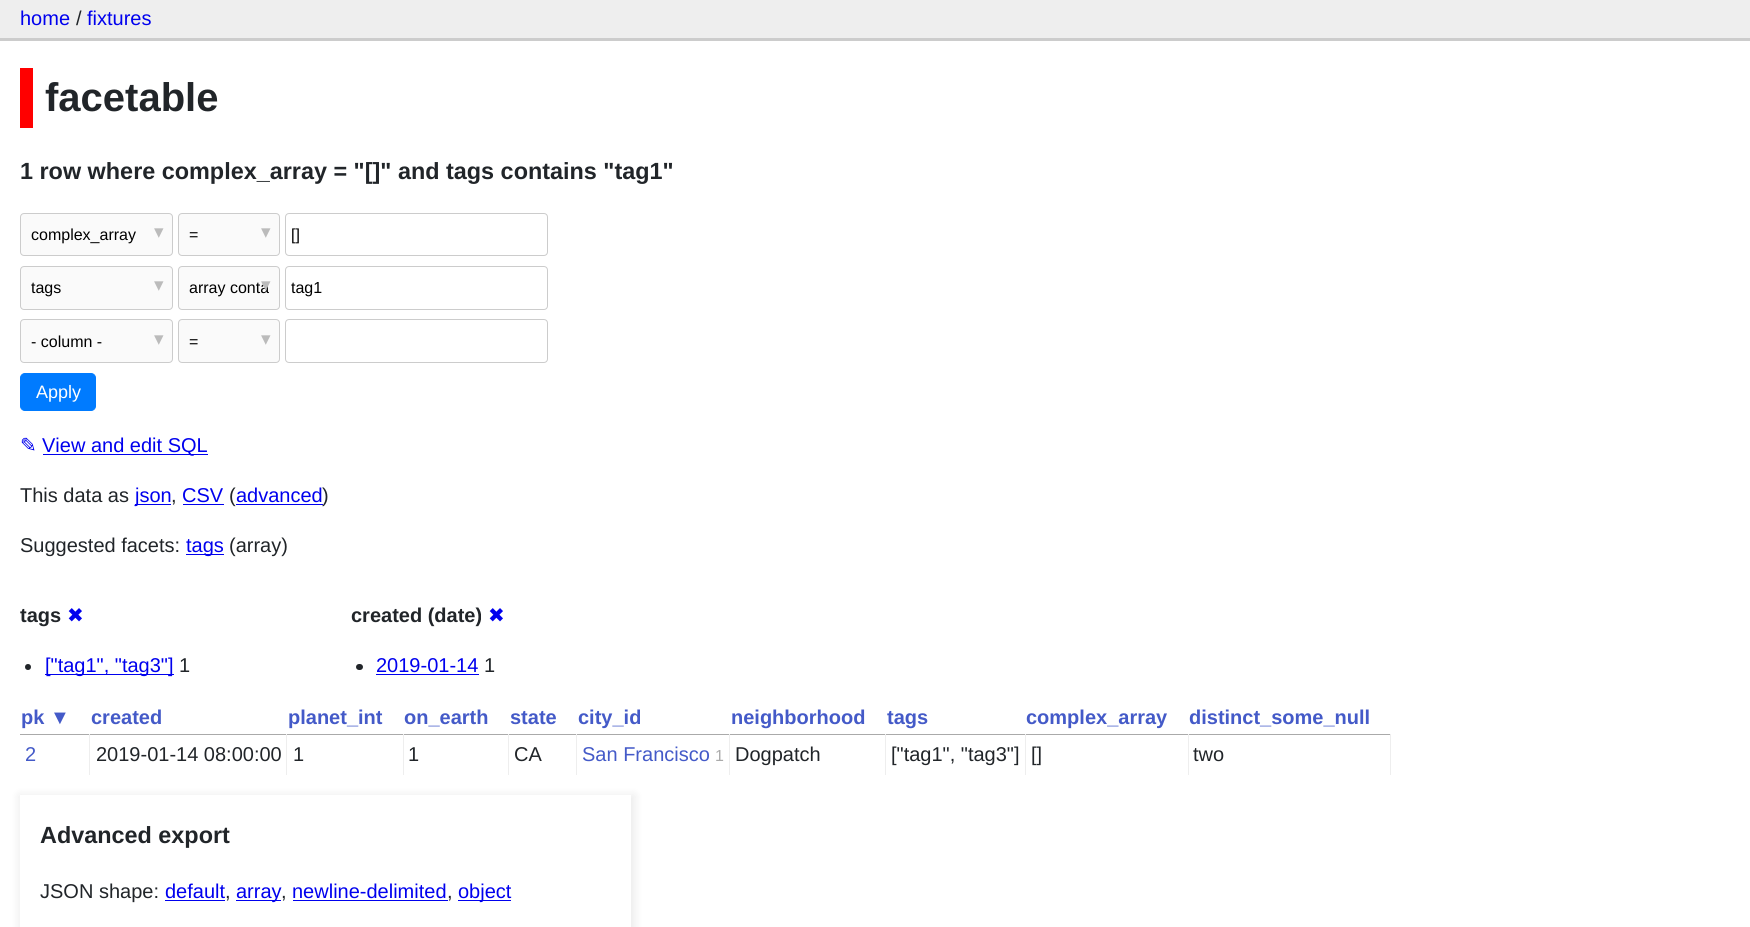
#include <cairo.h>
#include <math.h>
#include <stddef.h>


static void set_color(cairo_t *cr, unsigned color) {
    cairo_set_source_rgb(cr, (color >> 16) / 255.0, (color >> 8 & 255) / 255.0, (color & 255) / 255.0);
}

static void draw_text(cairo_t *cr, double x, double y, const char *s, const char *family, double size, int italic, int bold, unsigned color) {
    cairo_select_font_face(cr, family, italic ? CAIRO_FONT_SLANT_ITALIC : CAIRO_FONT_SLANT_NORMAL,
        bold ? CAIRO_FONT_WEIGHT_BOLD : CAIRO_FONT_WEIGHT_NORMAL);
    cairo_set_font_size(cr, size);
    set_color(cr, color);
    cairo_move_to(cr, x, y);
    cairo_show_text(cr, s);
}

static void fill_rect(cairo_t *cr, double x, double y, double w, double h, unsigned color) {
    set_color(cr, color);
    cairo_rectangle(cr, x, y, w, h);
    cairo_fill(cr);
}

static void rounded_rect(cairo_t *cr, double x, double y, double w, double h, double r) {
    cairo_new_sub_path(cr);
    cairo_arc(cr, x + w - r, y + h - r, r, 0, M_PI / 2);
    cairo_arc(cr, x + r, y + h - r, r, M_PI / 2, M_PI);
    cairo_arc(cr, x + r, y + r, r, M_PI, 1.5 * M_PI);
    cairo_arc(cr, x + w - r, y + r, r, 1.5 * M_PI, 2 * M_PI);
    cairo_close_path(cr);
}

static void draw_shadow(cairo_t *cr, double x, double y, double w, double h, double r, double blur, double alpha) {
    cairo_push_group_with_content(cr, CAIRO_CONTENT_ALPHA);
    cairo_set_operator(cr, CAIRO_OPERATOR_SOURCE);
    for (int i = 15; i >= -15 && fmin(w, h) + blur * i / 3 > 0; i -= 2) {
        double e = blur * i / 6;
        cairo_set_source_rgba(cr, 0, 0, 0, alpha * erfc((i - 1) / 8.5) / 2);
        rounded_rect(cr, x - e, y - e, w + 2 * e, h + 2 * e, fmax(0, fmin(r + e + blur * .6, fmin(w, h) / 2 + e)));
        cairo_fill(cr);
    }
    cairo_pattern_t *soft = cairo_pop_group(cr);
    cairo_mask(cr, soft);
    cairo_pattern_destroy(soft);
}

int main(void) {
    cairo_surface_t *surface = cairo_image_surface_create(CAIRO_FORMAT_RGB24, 1750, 927);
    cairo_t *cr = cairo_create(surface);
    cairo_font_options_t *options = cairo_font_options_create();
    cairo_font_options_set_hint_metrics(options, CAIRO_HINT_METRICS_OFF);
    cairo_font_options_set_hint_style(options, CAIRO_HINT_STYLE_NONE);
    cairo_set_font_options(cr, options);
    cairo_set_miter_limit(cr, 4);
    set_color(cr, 0xFFFFFF);
    cairo_paint(cr);
    fill_rect(cr, 0, 0, 1750, 38, 0xEEEEEE);
    fill_rect(cr, 0, 38, 1750, 3, 0xCCCCCC);
    draw_text(cr, 20, 25, "home", "Liberation Sans", 20, 0, 0, 0x0000EE);
    draw_text(cr, 76, 25, "/", "Liberation Sans", 20, 0, 0, 0x212529);
    draw_text(cr, 87, 25, "fixtures", "Liberation Sans", 20, 0, 0, 0x0000EE);
    fill_rect(cr, 20, 68, 13, 60, 0xFF0000);
    draw_text(cr, 45, 111, "facetable", "Liberation Sans", 40, 0, 1, 0x212529);
    draw_text(cr, 20, 179, "1 row where complex_array = \"[]\" and tags contains \"tag1\"", "Liberation Sans", 23.4, 0, 1, 0x212529);
    set_color(cr, 0xFAFAFA);
    rounded_rect(cr, 20.5, 213.5, 152, 42, 3.5);
    cairo_fill_preserve(cr);
    set_color(cr, 0xCCCCCC);
    cairo_set_line_width(cr, 1);
    cairo_stroke(cr);
    draw_text(cr, 31, 240, "complex_array", "Liberation Sans", 16, 0, 0, 0x000000);
    draw_text(cr, 154, 238, "▾", "DejaVu Sans", 19, 0, 0, 0xBBBBBB);
    set_color(cr, 0xFAFAFA);
    rounded_rect(cr, 178.5, 213.5, 101, 42, 3.5);
    cairo_fill_preserve(cr);
    set_color(cr, 0xCCCCCC);
    cairo_stroke(cr);
    draw_text(cr, 189, 240, "=", "Liberation Sans", 16, 0, 0, 0x000000);
    draw_text(cr, 261, 238, "▾", "DejaVu Sans", 19, 0, 0, 0xBBBBBB);
    rounded_rect(cr, 285.5, 213.5, 262, 42, 3.5);
    set_color(cr, 0xCCCCCC);
    cairo_stroke(cr);
    draw_text(cr, 291, 240, "[]", "Liberation Sans", 16, 0, 0, 0x000000);
    set_color(cr, 0xFAFAFA);
    rounded_rect(cr, 20.5, 266.5, 152, 43, 3.5);
    cairo_fill_preserve(cr);
    set_color(cr, 0xCCCCCC);
    cairo_stroke(cr);
    draw_text(cr, 31, 293, "tags", "Liberation Sans", 16, 0, 0, 0x000000);
    draw_text(cr, 154, 291, "▾", "DejaVu Sans", 19, 0, 0, 0xBBBBBB);
    set_color(cr, 0xFAFAFA);
    rounded_rect(cr, 178.5, 266.5, 101, 43, 3.5);
    cairo_fill_preserve(cr);
    set_color(cr, 0xCCCCCC);
    cairo_stroke(cr);
    draw_text(cr, 189, 293, "array conta", "Liberation Sans", 16, 0, 0, 0x000000);
    draw_text(cr, 261, 291, "▾", "DejaVu Sans", 19, 0, 0, 0xBBBBBB);
    rounded_rect(cr, 285.5, 266.5, 262, 43, 3.5);
    set_color(cr, 0xCCCCCC);
    cairo_stroke(cr);
    draw_text(cr, 291, 293, "tag1", "Liberation Sans", 16, 0, 0, 0x000000);
    set_color(cr, 0xFAFAFA);
    rounded_rect(cr, 20.5, 319.5, 152, 43, 3.5);
    cairo_fill_preserve(cr);
    set_color(cr, 0xCCCCCC);
    cairo_stroke(cr);
    draw_text(cr, 31, 347, "- column -", "Liberation Sans", 16, 0, 0, 0x000000);
    draw_text(cr, 154, 345, "▾", "DejaVu Sans", 19, 0, 0, 0xBBBBBB);
    set_color(cr, 0xFAFAFA);
    rounded_rect(cr, 178.5, 319.5, 101, 43, 3.5);
    cairo_fill_preserve(cr);
    set_color(cr, 0xCCCCCC);
    cairo_stroke(cr);
    draw_text(cr, 189, 347, "=", "Liberation Sans", 16, 0, 0, 0x000000);
    draw_text(cr, 261, 345, "▾", "DejaVu Sans", 19, 0, 0, 0xBBBBBB);
    rounded_rect(cr, 285.5, 319.5, 262, 43, 3.5);
    set_color(cr, 0xCCCCCC);
    cairo_stroke(cr);
    set_color(cr, 0x007BFF);
    rounded_rect(cr, 20.5, 373.5, 75, 37, 4.5);
    cairo_fill_preserve(cr);
    cairo_stroke(cr);
    draw_text(cr, 36, 398, "Apply", "Liberation Sans", 18, 0, 0, 0xFFFFFF);
    draw_text(cr, 20, 452, "✎", "DejaVu Sans", 20, 0, 0, 0x0000EE);
    fill_rect(cr, 43, 454, 165, 1, 0x0000EE);
    draw_text(cr, 42, 452, "View and edit SQL", "Liberation Sans", 20, 0, 0, 0x0000EE);
    draw_text(cr, 20, 502, "This data as", "Liberation Sans", 20, 0, 0, 0x212529);
    fill_rect(cr, 135, 504, 36, 1, 0x0000EE);
    draw_text(cr, 135, 502, "json", "Liberation Sans", 20, 0, 0, 0x0000EE);
    draw_text(cr, 171, 502, ",", "Liberation Sans", 20, 0, 0, 0x212529);
    draw_text(cr, 182, 502, "CSV", "Liberation Sans", 20, 0, 0, 0x0000EE);
    fill_rect(cr, 183, 504, 41, 1, 0x0000EE);
    draw_text(cr, 229, 502, "(", "Liberation Sans", 20, 0, 0, 0x212529);
    draw_text(cr, 236, 502, "advanced", "Liberation Sans", 20, 0, 0, 0x0000EE);
    fill_rect(cr, 236, 504, 87, 1, 0x0000EE);
    draw_text(cr, 322, 502, ")", "Liberation Sans", 20, 0, 0, 0x212529);
    draw_text(cr, 20, 552, "Suggested facets:", "Liberation Sans", 20, 0, 0, 0x212529);
    fill_rect(cr, 186, 554, 38, 1, 0x0000EE);
    draw_text(cr, 186, 552, "tags", "Liberation Sans", 20, 0, 0, 0x0000EE);
    draw_text(cr, 229, 552, "(array)", "Liberation Sans", 20, 0, 0, 0x212529);
    draw_text(cr, 20, 622, "tags", "Liberation Sans", 20, 0, 1, 0x212529);
    draw_text(cr, 67, 622, "✖", "DejaVu Sans", 20, 0, 0, 0x0000EE);
    set_color(cr, 0x212529);
    cairo_new_path(cr);
    cairo_arc(cr, 28, 667, 3, 0, 2 * M_PI);
    cairo_fill(cr);
    fill_rect(cr, 45, 674, 129, 1, 0x0000EE);
    draw_text(cr, 45, 672, "[\"tag1\", \"tag3\"]", "Liberation Sans", 20, 0, 0, 0x0000EE);
    draw_text(cr, 179, 672, "1", "Liberation Sans", 20, 0, 0, 0x212529);
    draw_text(cr, 351, 622, "created (date)", "Liberation Sans", 20, 0, 1, 0x212529);
    draw_text(cr, 488, 622, "✖", "DejaVu Sans", 20, 0, 0, 0x0000EE);
    set_color(cr, 0x212529);
    rounded_rect(cr, 356, 664, 7, 6, 3);
    cairo_fill(cr);
    draw_text(cr, 376, 672, "2019-01-14", "Liberation Sans", 20, 0, 0, 0x0000EE);
    fill_rect(cr, 376, 674, 103, 1, 0x0000EE);
    draw_text(cr, 484, 672, "1", "Liberation Sans", 20, 0, 0, 0x212529);
    draw_text(cr, 21, 724, "pk ▼", "Liberation Sans", 20, 0, 1, 0x445AC8);
    draw_text(cr, 91, 724, "created", "Liberation Sans", 20, 0, 1, 0x445AC8);
    draw_text(cr, 288, 724, "planet_int", "Liberation Sans", 20, 0, 1, 0x445AC8);
    draw_text(cr, 404, 724, "on_earth", "Liberation Sans", 20, 0, 1, 0x445AC8);
    draw_text(cr, 510, 724, "state", "Liberation Sans", 20, 0, 1, 0x445AC8);
    draw_text(cr, 578, 724, "city_id", "Liberation Sans", 20, 0, 1, 0x445AC8);
    draw_text(cr, 731, 724, "neighborhood", "Liberation Sans", 20, 0, 1, 0x445AC8);
    draw_text(cr, 887, 724, "tags", "Liberation Sans", 20, 0, 1, 0x445AC8);
    draw_text(cr, 1026, 724, "complex_array", "Liberation Sans", 20, 0, 1, 0x445AC8);
    draw_text(cr, 1189, 724, "distinct_some_null", "Liberation Sans", 20, 0, 1, 0x445AC8);
    fill_rect(cr, 20, 734, 1371, 1, 0xAAAAAA);
    fill_rect(cr, 89, 734, 1, 41, 0xEEEEEE);
    draw_text(cr, 25, 761, "2", "Liberation Sans", 20, 0, 0, 0x445AC8);
    fill_rect(cr, 286, 734, 1, 41, 0xEEEEEE);
    draw_text(cr, 96, 761, "2019-01-14 08:00:00", "Liberation Sans", 20, 0, 0, 0x212529);
    fill_rect(cr, 403, 734, 1, 41, 0xEEEEEE);
    draw_text(cr, 293, 761, "1", "Liberation Sans", 20, 0, 0, 0x212529);
    fill_rect(cr, 508, 734, 1, 41, 0xEEEEEE);
    draw_text(cr, 408, 761, "1", "Liberation Sans", 20, 0, 0, 0x212529);
    fill_rect(cr, 576, 734, 1, 41, 0xEEEEEE);
    draw_text(cr, 514, 761, "CA", "Liberation Sans", 20, 0, 0, 0x212529);
    fill_rect(cr, 729, 734, 1, 41, 0xEEEEEE);
    draw_text(cr, 582, 761, "San Francisco", "Liberation Sans", 20, 0, 0, 0x445AC8);
    draw_text(cr, 715, 761, "1", "Liberation Sans", 16, 0, 0, 0xAAAAAA);
    fill_rect(cr, 885, 734, 1, 41, 0xEEEEEE);
    draw_text(cr, 735, 761, "Dogpatch", "Liberation Sans", 20, 0, 0, 0x212529);
    fill_rect(cr, 1025, 734, 1, 41, 0xEEEEEE);
    draw_text(cr, 891, 761, "[\"tag1\", \"tag3\"]", "Liberation Sans", 20, 0, 0, 0x212529);
    fill_rect(cr, 1188, 734, 1, 41, 0xEEEEEE);
    draw_text(cr, 1031, 761, "[]", "Liberation Sans", 20, 0, 0, 0x212529);
    fill_rect(cr, 1390, 734, 1, 41, 0xEEEEEE);
    draw_text(cr, 1193, 761, "two", "Liberation Sans", 20, 0, 0, 0x212529);
    cairo_save(cr);
    cairo_set_fill_rule(cr, CAIRO_FILL_RULE_EVEN_ODD);
    cairo_new_path(cr);
    cairo_move_to(cr, 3, 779);
    cairo_line_to(cr, 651, 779);
    cairo_line_to(cr, 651, 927);
    cairo_line_to(cr, 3, 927);
    cairo_close_path(cr);
    cairo_move_to(cr, 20, 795);
    cairo_line_to(cr, 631, 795);
    cairo_line_to(cr, 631, 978);
    cairo_line_to(cr, 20, 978);
    cairo_close_path(cr);
    cairo_clip(cr);
    set_color(cr, 0x000000);
    draw_shadow(cr, 19, 795, 616, 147, 0, 5, 0.08);
    cairo_restore(cr);
    draw_text(cr, 40, 843, "Advanced export", "Liberation Sans", 23.4, 0, 1, 0x212529);
    draw_text(cr, 40, 898, "JSON shape:", "Liberation Sans", 20, 0, 0, 0x212529);
    draw_text(cr, 165, 898, "default", "Liberation Sans", 20, 0, 0, 0x0000EE);
    fill_rect(cr, 165, 900, 60, 1, 0x0000EE);
    draw_text(cr, 225, 898, ",", "Liberation Sans", 20, 0, 0, 0x212529);
    fill_rect(cr, 236, 900, 45, 1, 0x0000EE);
    draw_text(cr, 236, 898, "array", "Liberation Sans", 20, 0, 0, 0x0000EE);
    draw_text(cr, 281, 898, ",", "Liberation Sans", 20, 0, 0, 0x212529);
    draw_text(cr, 292, 898, "newline-delimited", "Liberation Sans", 20, 0, 0, 0x0000EE);
    fill_rect(cr, 293, 900, 155, 1, 0x0000EE);
    draw_text(cr, 447, 898, ",", "Liberation Sans", 20, 0, 0, 0x212529);
    fill_rect(cr, 458, 900, 53, 1, 0x0000EE);
    draw_text(cr, 458, 898, "object", "Liberation Sans", 20, 0, 0, 0x0000EE);
    cairo_surface_write_to_png(surface, "output.png");
    cairo_font_options_destroy(options);
    cairo_destroy(cr);
    cairo_surface_destroy(surface);
    return 0;
}
